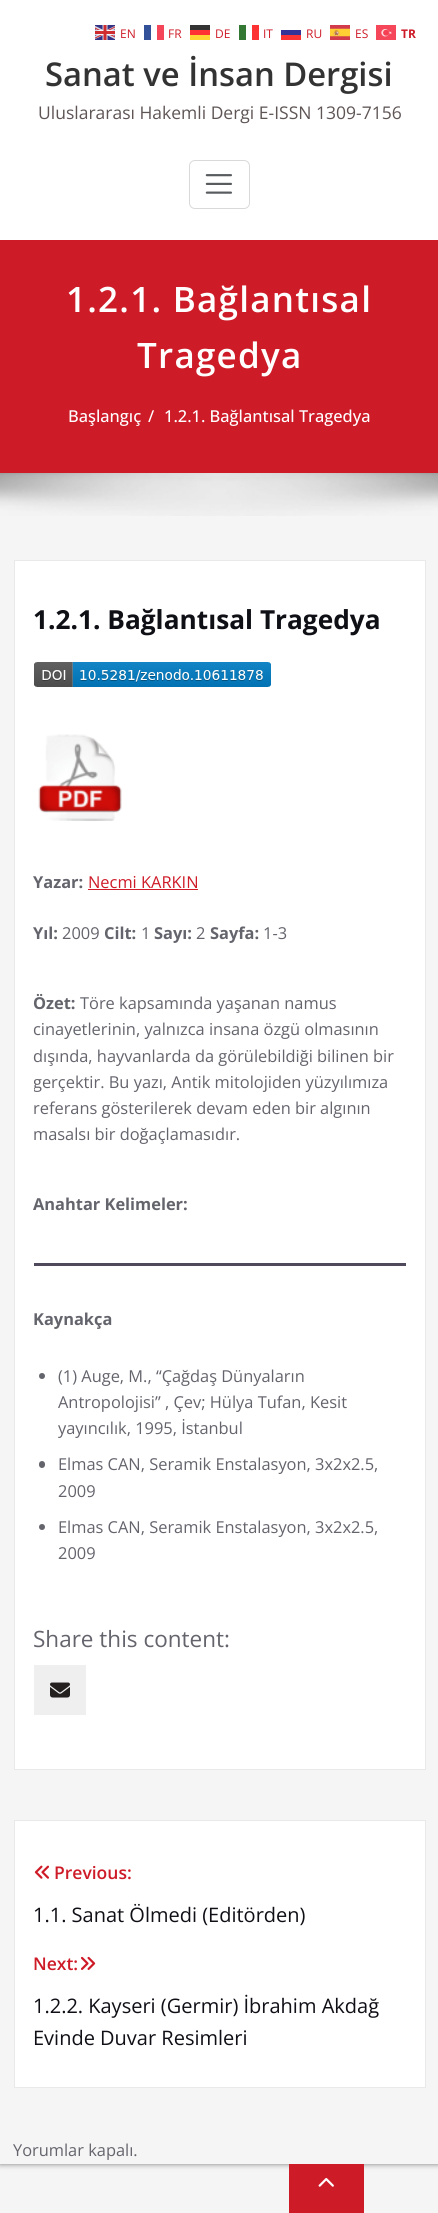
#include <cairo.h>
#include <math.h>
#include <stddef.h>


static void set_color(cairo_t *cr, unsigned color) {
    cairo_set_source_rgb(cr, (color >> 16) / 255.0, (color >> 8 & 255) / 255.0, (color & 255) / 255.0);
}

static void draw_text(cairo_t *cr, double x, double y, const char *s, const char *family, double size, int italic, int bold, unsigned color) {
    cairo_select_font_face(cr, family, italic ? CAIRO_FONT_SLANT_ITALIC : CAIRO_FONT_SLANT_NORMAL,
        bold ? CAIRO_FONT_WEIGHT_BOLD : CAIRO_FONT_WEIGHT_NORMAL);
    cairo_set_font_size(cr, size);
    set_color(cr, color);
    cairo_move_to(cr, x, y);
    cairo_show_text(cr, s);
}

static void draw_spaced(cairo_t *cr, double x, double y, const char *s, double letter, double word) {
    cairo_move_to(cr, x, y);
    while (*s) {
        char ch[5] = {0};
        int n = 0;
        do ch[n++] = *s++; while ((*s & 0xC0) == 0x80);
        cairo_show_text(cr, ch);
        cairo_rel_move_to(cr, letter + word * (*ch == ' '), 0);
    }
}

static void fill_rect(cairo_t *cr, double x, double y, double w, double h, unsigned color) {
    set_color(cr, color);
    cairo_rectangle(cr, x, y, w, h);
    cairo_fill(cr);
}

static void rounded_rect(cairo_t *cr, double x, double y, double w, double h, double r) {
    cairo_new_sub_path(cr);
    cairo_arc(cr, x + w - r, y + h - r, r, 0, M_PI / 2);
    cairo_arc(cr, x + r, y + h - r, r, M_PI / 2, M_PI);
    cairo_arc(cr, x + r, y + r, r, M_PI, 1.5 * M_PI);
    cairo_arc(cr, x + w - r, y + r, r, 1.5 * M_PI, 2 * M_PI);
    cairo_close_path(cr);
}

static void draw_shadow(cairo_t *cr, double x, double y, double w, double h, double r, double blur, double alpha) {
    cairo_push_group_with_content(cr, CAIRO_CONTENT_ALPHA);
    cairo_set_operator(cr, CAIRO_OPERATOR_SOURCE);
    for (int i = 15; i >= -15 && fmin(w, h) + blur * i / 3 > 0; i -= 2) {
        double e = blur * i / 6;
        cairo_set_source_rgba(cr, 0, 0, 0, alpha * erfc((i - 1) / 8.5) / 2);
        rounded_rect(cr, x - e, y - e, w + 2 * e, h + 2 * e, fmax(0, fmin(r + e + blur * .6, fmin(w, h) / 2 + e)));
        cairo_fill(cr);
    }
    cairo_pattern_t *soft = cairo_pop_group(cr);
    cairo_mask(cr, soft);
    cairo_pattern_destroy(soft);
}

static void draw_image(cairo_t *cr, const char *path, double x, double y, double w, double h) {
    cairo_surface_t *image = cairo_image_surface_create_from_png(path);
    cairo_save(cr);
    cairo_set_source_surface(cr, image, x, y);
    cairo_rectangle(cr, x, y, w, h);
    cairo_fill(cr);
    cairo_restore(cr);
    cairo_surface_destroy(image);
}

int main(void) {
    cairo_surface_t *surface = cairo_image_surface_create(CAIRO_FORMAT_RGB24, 438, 2213);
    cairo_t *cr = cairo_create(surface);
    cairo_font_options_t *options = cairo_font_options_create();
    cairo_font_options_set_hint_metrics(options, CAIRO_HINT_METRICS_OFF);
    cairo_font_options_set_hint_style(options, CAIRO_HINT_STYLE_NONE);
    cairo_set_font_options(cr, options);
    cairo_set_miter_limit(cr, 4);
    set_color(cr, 0xF5F5F5);
    cairo_paint(cr);
    set_color(cr, 0x000000);
    draw_shadow(cr, 0, -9, 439, 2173, 0, 3, 0.5);
    fill_rect(cr, 0, 473, 438, 1691, 0xF5F5F5);
    fill_rect(cr, 0, 0, 438, 240, 0xFFFFFF);
    draw_image(cr, "assets/img1.png", 95, 25, 20, 15);
    draw_text(cr, 120, 38, "EN", "Open Sans", 12, 0, 0, 0xCE1B28);
    draw_text(cr, 168, 38, "FR", "Open Sans", 12, 0, 0, 0xCE1B28);
    fill_rect(cr, 144, 25, 7, 15, 0x335199);
    fill_rect(cr, 157, 25, 7, 15, 0xF54659);
    draw_text(cr, 215, 38, "DE", "Open Sans", 12, 0, 0, 0xCE1B28);
    fill_rect(cr, 190, 35, 20, 5, 0xFFD633);
    fill_rect(cr, 190, 25, 20, 5, 0x333333);
    fill_rect(cr, 190, 30, 20, 5, 0xFF3333);
    draw_text(cr, 263, 38, "IT", "Open Sans", 12, 0, 0, 0xCE1B28);
    fill_rect(cr, 239, 25, 7, 15, 0x337933);
    fill_rect(cr, 252, 25, 7, 15, 0xFD3333);
    draw_text(cr, 306, 38, "RU", "Open Sans", 12, 0, 0, 0xCE1B28);
    fill_rect(cr, 281, 30, 20, 5, 0x343498);
    fill_rect(cr, 281, 35, 20, 5, 0xFE3434);
    draw_image(cr, "assets/img2.png", 330, 25, 20, 15);
    draw_text(cr, 355, 38, "ES", "Open Sans", 12, 0, 0, 0xCE1B28);
    draw_image(cr, "assets/img3.png", 376, 25, 20, 15);
    draw_text(cr, 401, 38, "TR", "Open Sans", 12, 0, 1, 0xCE1B28);
    draw_text(cr, 45, 86, "Sanat ve İnsan Dergisi", "Open Sans SemiBold", 32.75, 0, 0, 0x333333);
    draw_text(cr, 38, 119, "Uluslararası Hakemli Dergi E-ISSN 1309-7156", "Open Sans", 17.5, 0, 0, 0x5F5555);
    rounded_rect(cr, 189.5, 160.5, 60, 48, 5.5);
    set_color(cr, 0xD9D9D9);
    cairo_set_line_width(cr, 1);
    cairo_stroke(cr);
    draw_image(cr, "assets/img4.png", 205, 174, 27, 20);
    fill_rect(cr, 0, 240, 438, 233, 0xCE1B28);
    cairo_select_font_face(cr, "Open Sans SemiBold", CAIRO_FONT_SLANT_NORMAL, CAIRO_FONT_WEIGHT_NORMAL);
    cairo_set_font_size(cr, 35);
    set_color(cr, 0xFFFFFF);
    draw_spaced(cr, 66, 312, "1.2.1. Bağlantısal", 1.25, 0);
    draw_spaced(cr, 137, 368, "Tragedya", 1.25, 0);
    draw_text(cr, 68, 422, "Başlangıç", "Open Sans Medium", 16.4, 0, 0, 0xFFFFFF);
    draw_text(cr, 148, 422, "/", "Open Sans Medium", 16.4, 0, 0, 0xFFFFFF);
    draw_text(cr, 164, 422, "1.2.1. Bağlantısal Tragedya", "Open Sans Medium", 16.4, 0, 0, 0xFFFFFF);
    draw_image(cr, "assets/img5.png", 0, 473, 438, 43);
    cairo_rectangle(cr, 14.5, 560.5, 411, 1209);
    cairo_fill_preserve(cr);
    set_color(cr, 0xE9E9E9);
    cairo_stroke(cr);
    draw_text(cr, 33, 629, "1.2.1. Bağlantısal Tragedya", "Open Sans", 26.25, 0, 1, 0x0F0F16);
    draw_image(cr, "assets/img6.png", 34, 662, 237, 25);
    draw_image(cr, "assets/img7.png", 38, 734, 84, 87);
    draw_text(cr, 33, 888, "Yazar:", "Open Sans", 16.4, 0, 1, 0x64646D);
    draw_text(cr, 88, 888, "Necmi KARKIN", "Open Sans", 16.4, 0, 0, 0xCE1B28);
    fill_rect(cr, 88, 889, 110, 1, 0xCE1B28);
    draw_text(cr, 33, 939, "Yıl:", "Open Sans", 16.4, 0, 1, 0x64646D);
    draw_text(cr, 62, 939, "2009", "Open Sans", 16.4, 0, 0, 0x64646D);
    draw_text(cr, 104, 939, "Cilt:", "Open Sans", 16.4, 0, 1, 0x64646D);
    draw_text(cr, 141, 939, "1", "Open Sans", 16.4, 0, 0, 0x64646D);
    draw_text(cr, 154, 939, "Sayı:", "Open Sans", 16.4, 0, 1, 0x64646D);
    draw_text(cr, 196, 939, "2", "Open Sans", 16.4, 0, 0, 0x64646D);
    draw_text(cr, 210, 939, "Sayfa:", "Open Sans", 16.4, 0, 1, 0x64646D);
    draw_text(cr, 263, 939, "1-3", "Open Sans", 16.4, 0, 0, 0x64646D);
    draw_text(cr, 33, 1009, "Özet:", "Open Sans", 16.4, 0, 1, 0x64646D);
    draw_text(cr, 80, 1009, "Töre kapsamında yaşanan namus", "Open Sans", 16.4, 0, 0, 0x64646D);
    draw_text(cr, 33, 1035, "cinayetlerinin, yalnızca insana özgü olmasının", "Open Sans", 16.4, 0, 0, 0x64646D);
    draw_text(cr, 33, 1062, "dışında, hayvanlarda da görülebildiği bilinen bir", "Open Sans", 16.4, 0, 0, 0x64646D);
    cairo_save(cr);
    cairo_rectangle(cr, 34, 663, 372, 1075);
    cairo_clip(cr);
    draw_text(cr, 33, 1088, "gerçektir. Bu yazı, Antik mitolojiden yüzyılımıza", "Open Sans", 16.4, 0, 0, 0x64646D);
    cairo_restore(cr);
    draw_text(cr, 33, 1114, "referans gösterilerek devam eden bir algının", "Open Sans", 16.4, 0, 0, 0x64646D);
    draw_text(cr, 33, 1140, "masalsı bir doğaçlamasıdır.", "Open Sans", 16.4, 0, 0, 0x64646D);
    draw_text(cr, 33, 1210, "Anahtar Kelimeler:", "Open Sans", 16.4, 0, 1, 0x64646D);
    fill_rect(cr, 34, 1263, 372, 3, 0x50485B);
    draw_text(cr, 33, 1325, "Kaynakça", "Open Sans", 16.4, 0, 1, 0x64646D);
    cairo_new_path(cr);
    cairo_arc(cr, 42, 1376, 3, 0, 2 * M_PI);
    cairo_fill(cr);
    draw_text(cr, 58, 1382, "(1) Auge, M., “Çağdaş Dünyaların", "Open Sans", 16.4, 0, 0, 0x64646D);
    draw_text(cr, 58, 1408, "Antropolojisi” , Çev; Hülya Tufan, Kesit", "Open Sans", 16.4, 0, 0, 0x64646D);
    draw_text(cr, 58, 1434, "yayıncılık, 1995, İstanbul", "Open Sans", 16.4, 0, 0, 0x64646D);
    rounded_rect(cr, 39, 1461, 6, 7, 3);
    cairo_fill(cr);
    draw_text(cr, 58, 1470, "Elmas CAN, Seramik Enstalasyon, 3x2x2.5,", "Open Sans", 16.4, 0, 0, 0x64646D);
    draw_text(cr, 58, 1497, "2009", "Open Sans", 16.4, 0, 0, 0x64646D);
    cairo_new_path(cr);
    cairo_arc(cr, 42, 1527, 3, 0, 2 * M_PI);
    cairo_fill(cr);
    draw_text(cr, 58, 1533, "Elmas CAN, Seramik Enstalasyon, 3x2x2.5,", "Open Sans", 16.4, 0, 0, 0x64646D);
    draw_text(cr, 58, 1559, "2009", "Open Sans", 16.4, 0, 0, 0x64646D);
    draw_text(cr, 33, 1647, "Share this content:", "Open Sans", 22.5, 0, 0, 0x64646D);
    fill_rect(cr, 34, 1665, 52, 50, 0xEFEFEF);
    draw_image(cr, "assets/img8.png", 50, 1682, 20, 16);
    set_color(cr, 0xFFFFFF);
    cairo_rectangle(cr, 14.5, 1820.5, 411, 267);
    cairo_fill_preserve(cr);
    set_color(cr, 0xE9E9E9);
    cairo_stroke(cr);
    draw_image(cr, "assets/img9.png", 34, 1865, 15, 14);
    draw_text(cr, 54, 1879, "Previous:", "Open Sans SemiBold", 17.5, 0, 0, 0xCE1B28);
    draw_text(cr, 33, 1922, "1.1. Sanat Ölmedi (Editörden)", "Open Sans", 20, 0, 0, 0x0F0F16);
    draw_text(cr, 33, 1970, "Next:", "Open Sans SemiBold", 17.5, 0, 0, 0xCE1B28);
    draw_image(cr, "assets/img10.png", 81, 1956, 15, 14);
    draw_text(cr, 33, 2013, "1.2.2. Kayseri (Germir) İbrahim Akdağ", "Open Sans", 20, 0, 0, 0x0F0F16);
    draw_text(cr, 33, 2045, "Evinde Duvar Resimleri", "Open Sans", 20, 0, 0, 0x0F0F16);
    draw_text(cr, 13, 2156, "Yorumlar kapalı.", "Open Sans", 16.4, 0, 0, 0x64646D);
    fill_rect(cr, 289, 2164, 75, 49, 0xCE1B28);
    draw_image(cr, "assets/img11.png", 318, 2178, 16, 9);
    cairo_surface_write_to_png(surface, "output.png");
    cairo_font_options_destroy(options);
    cairo_destroy(cr);
    cairo_surface_destroy(surface);
    return 0;
}
